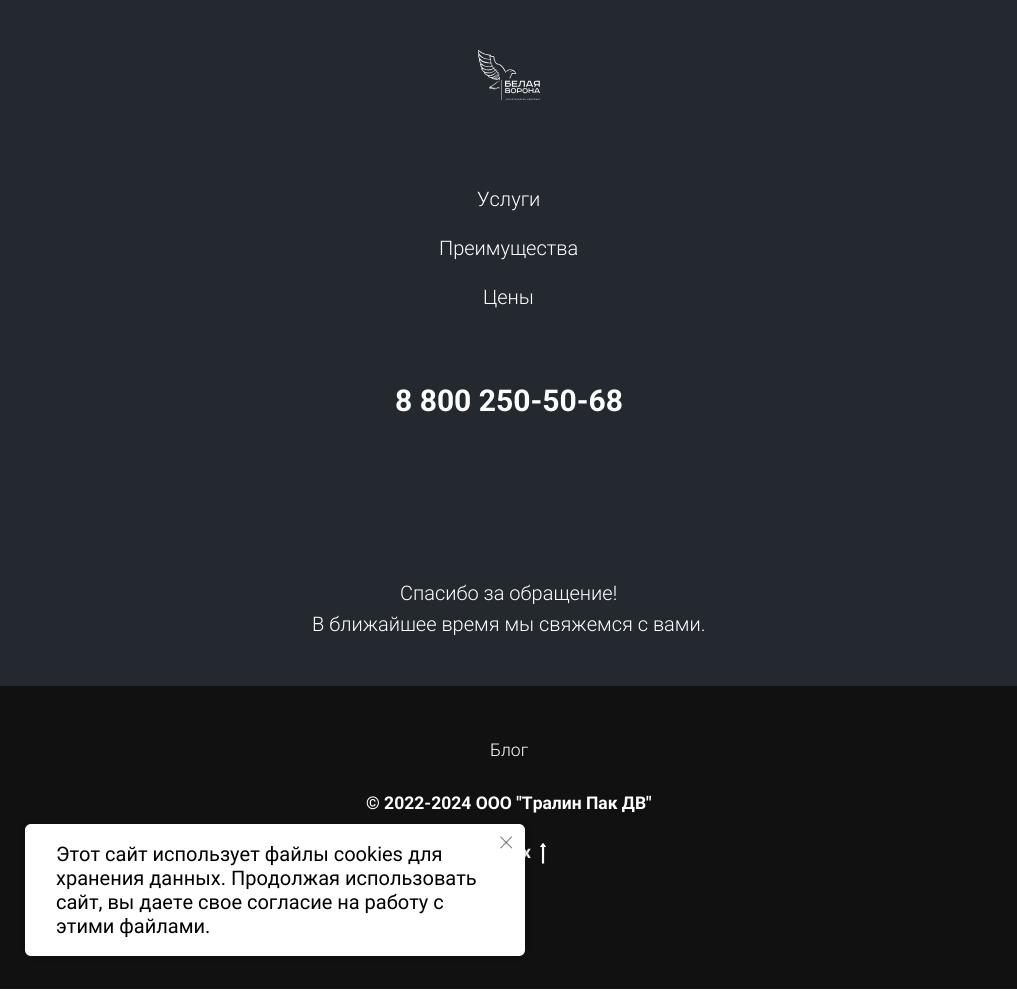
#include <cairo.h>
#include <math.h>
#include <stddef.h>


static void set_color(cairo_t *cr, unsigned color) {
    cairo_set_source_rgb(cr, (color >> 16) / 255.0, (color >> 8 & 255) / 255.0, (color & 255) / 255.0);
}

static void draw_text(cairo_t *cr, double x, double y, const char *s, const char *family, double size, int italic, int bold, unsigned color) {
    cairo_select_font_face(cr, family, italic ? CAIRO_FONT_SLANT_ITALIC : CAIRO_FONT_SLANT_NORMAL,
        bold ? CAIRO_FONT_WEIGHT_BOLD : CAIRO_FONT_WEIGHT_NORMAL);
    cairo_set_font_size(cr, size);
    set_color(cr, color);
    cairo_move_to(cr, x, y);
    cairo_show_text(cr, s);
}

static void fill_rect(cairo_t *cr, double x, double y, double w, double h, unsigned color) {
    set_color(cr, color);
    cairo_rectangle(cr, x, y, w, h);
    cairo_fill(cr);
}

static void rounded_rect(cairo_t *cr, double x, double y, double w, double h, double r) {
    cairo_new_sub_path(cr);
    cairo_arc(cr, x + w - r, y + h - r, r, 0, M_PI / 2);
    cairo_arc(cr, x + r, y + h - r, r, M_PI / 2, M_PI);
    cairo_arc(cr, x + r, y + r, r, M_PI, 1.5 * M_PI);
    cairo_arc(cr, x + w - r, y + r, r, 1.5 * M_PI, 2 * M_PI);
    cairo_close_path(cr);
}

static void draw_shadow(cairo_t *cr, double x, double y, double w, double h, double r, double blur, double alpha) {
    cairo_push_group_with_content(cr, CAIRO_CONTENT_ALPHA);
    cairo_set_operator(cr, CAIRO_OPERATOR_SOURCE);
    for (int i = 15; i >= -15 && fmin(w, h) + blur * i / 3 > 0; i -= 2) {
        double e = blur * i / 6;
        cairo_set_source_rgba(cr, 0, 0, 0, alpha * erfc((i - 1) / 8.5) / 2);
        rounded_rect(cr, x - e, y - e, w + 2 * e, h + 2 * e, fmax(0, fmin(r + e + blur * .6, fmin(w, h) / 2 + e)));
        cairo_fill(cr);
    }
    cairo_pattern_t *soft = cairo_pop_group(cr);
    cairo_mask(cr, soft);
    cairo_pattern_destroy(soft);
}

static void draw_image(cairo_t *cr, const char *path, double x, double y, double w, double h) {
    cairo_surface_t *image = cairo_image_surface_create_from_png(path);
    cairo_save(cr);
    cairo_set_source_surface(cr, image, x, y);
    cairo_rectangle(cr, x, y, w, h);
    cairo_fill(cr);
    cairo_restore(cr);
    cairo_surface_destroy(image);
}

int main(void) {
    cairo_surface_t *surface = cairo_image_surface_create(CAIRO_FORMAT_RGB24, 1017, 993);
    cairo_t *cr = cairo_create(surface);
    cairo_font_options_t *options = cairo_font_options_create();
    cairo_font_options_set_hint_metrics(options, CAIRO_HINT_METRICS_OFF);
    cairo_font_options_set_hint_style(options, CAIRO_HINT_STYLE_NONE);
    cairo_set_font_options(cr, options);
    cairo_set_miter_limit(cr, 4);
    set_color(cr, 0xFFFFFF);
    cairo_paint(cr);
    fill_rect(cr, 0, 0, 1017, 686, 0x23292F);
    draw_image(cr, "assets/img1.png", 478, 50, 62, 50);
    draw_text(cr, 477, 206, "Услуги", "Roboto Light", 20, 0, 0, 0xFFFFFF);
    draw_text(cr, 439, 255, "Преимущества", "Roboto Light", 20, 0, 0, 0xFFFFFF);
    draw_text(cr, 483, 304, "Цены", "Roboto Light", 20, 0, 0, 0xFFFFFF);
    draw_text(cr, 395, 411, "8 800 250-50-68", "Roboto", 30, 0, 1, 0xFFFFFF);
    draw_text(cr, 400, 600, "Спасибо за обращение!", "Roboto Light", 20, 0, 0, 0xFFFFFF);
    draw_text(cr, 312, 631, "В ближайшее время мы свяжемся с вами.", "Roboto Light", 20, 0, 0, 0xFFFFFF);
    fill_rect(cr, 0, 686, 1017, 303, 0x111111);
    draw_text(cr, 490, 756, "Блог", "Roboto Light", 17.5, 0, 0, 0xFFFFFF);
    draw_text(cr, 366, 809, "© 2022-2024 ООО \"Тралин Пак ДВ\"", "Roboto", 17.5, 0, 1, 0xFFFFFF);
    draw_text(cr, 522, 858, "х", "Roboto", 17.5, 0, 1, 0xFFFFFF);
    draw_image(cr, "assets/img2.png", 540, 843, 6, 21);
    set_color(cr, 0x000000);
    draw_shadow(cr, 25, 824, 500, 132, 6, 6, 0.3);
    set_color(cr, 0xFFFFFF);
    rounded_rect(cr, 25, 824, 500, 132, 6);
    cairo_fill(cr);
    draw_image(cr, "assets/img3.png", 500, 836, 13, 13);
    draw_text(cr, 56, 861, "Этот сайт использует файлы cookies для", "Roboto", 20, 0, 0, 0x000000);
    draw_text(cr, 56, 885, "хранения данных. Продолжая использовать", "Roboto", 20, 0, 0, 0x000000);
    draw_text(cr, 56, 909, "сайт, вы даете свое согласие на работу с", "Roboto", 20, 0, 0, 0x000000);
    draw_text(cr, 56, 933, "этими файлами.", "Roboto", 20, 0, 0, 0x000000);
    cairo_surface_write_to_png(surface, "output.png");
    cairo_font_options_destroy(options);
    cairo_destroy(cr);
    cairo_surface_destroy(surface);
    return 0;
}
